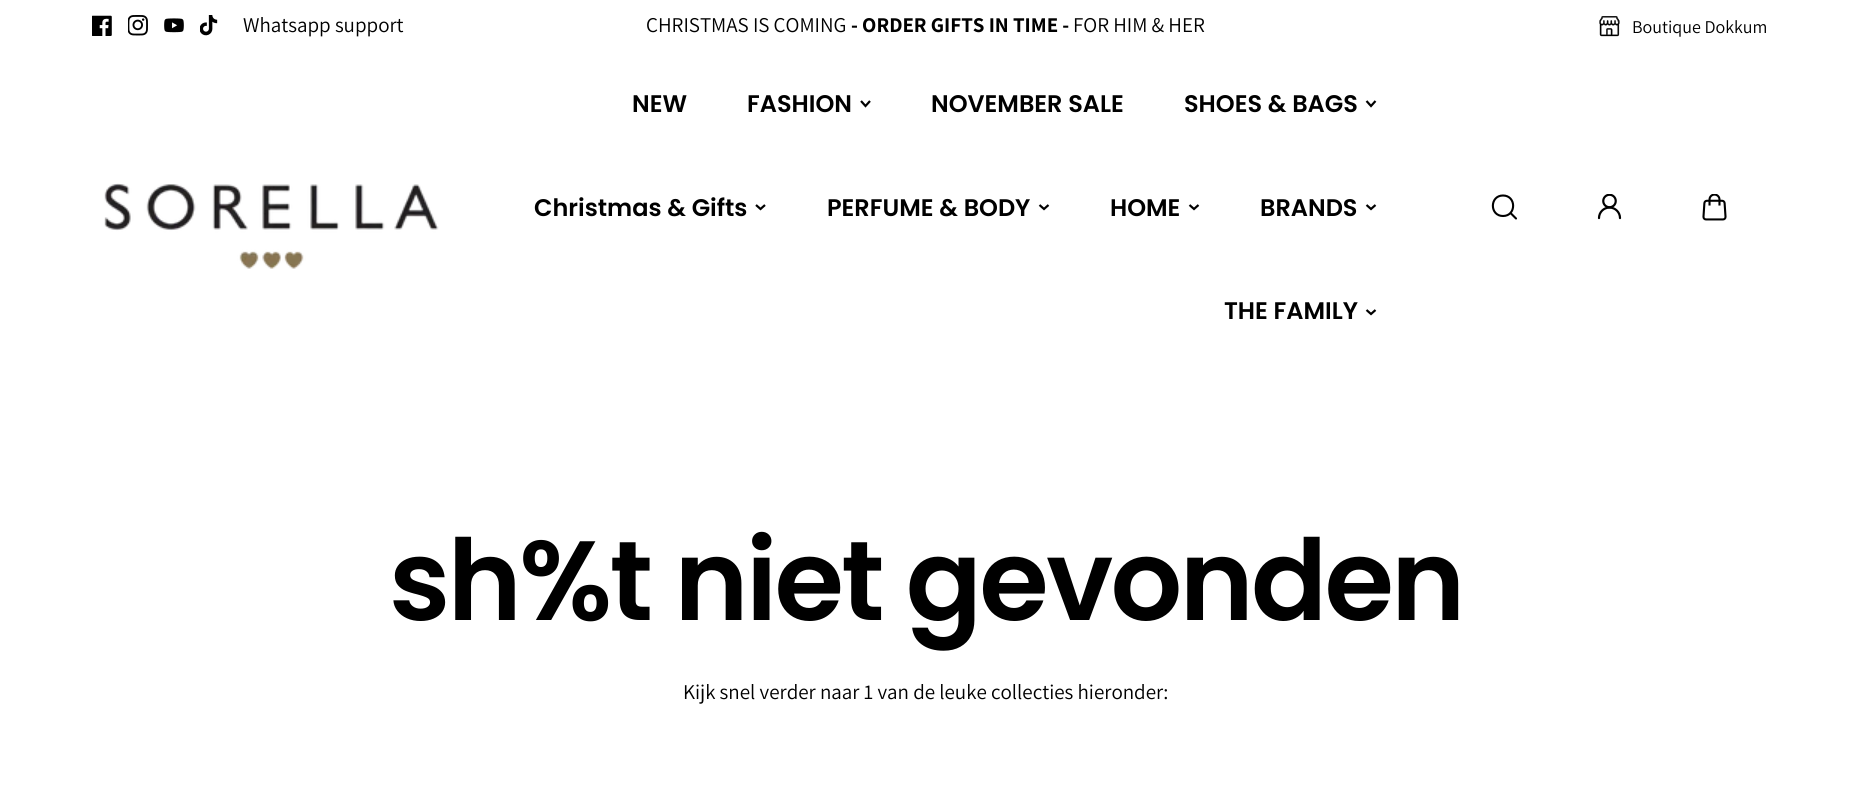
#include <cairo.h>
#include <math.h>
#include <stddef.h>


static void set_color(cairo_t *cr, unsigned color) {
    cairo_set_source_rgb(cr, (color >> 16) / 255.0, (color >> 8 & 255) / 255.0, (color & 255) / 255.0);
}

static void draw_text(cairo_t *cr, double x, double y, const char *s, const char *family, double size, int italic, int bold, unsigned color) {
    cairo_select_font_face(cr, family, italic ? CAIRO_FONT_SLANT_ITALIC : CAIRO_FONT_SLANT_NORMAL,
        bold ? CAIRO_FONT_WEIGHT_BOLD : CAIRO_FONT_WEIGHT_NORMAL);
    cairo_set_font_size(cr, size);
    set_color(cr, color);
    cairo_move_to(cr, x, y);
    cairo_show_text(cr, s);
}

static void draw_spaced(cairo_t *cr, double x, double y, const char *s, double letter, double word) {
    cairo_move_to(cr, x, y);
    while (*s) {
        char ch[5] = {0};
        int n = 0;
        do ch[n++] = *s++; while ((*s & 0xC0) == 0x80);
        cairo_show_text(cr, ch);
        cairo_rel_move_to(cr, letter + word * (*ch == ' '), 0);
    }
}

static void draw_image(cairo_t *cr, const char *path, double x, double y, double w, double h) {
    cairo_surface_t *image = cairo_image_surface_create_from_png(path);
    cairo_save(cr);
    cairo_set_source_surface(cr, image, x, y);
    cairo_rectangle(cr, x, y, w, h);
    cairo_fill(cr);
    cairo_restore(cr);
    cairo_surface_destroy(image);
}

int main(void) {
    cairo_surface_t *surface = cairo_image_surface_create(CAIRO_FORMAT_RGB24, 1850, 788);
    cairo_t *cr = cairo_create(surface);
    cairo_font_options_t *options = cairo_font_options_create();
    cairo_font_options_set_hint_metrics(options, CAIRO_HINT_METRICS_OFF);
    cairo_font_options_set_hint_style(options, CAIRO_HINT_STYLE_NONE);
    cairo_set_font_options(cr, options);
    cairo_set_miter_limit(cr, 4);
    set_color(cr, 0xFFFFFF);
    cairo_paint(cr);
    draw_image(cr, "assets/img1.png", 92, 15, 20, 21);
    draw_image(cr, "assets/img2.png", 128, 15, 20, 21);
    draw_image(cr, "assets/img3.png", 164, 18, 20, 15);
    draw_image(cr, "assets/img4.png", 200, 15, 18, 21);
    draw_text(cr, 243, 32, "Whatsapp support", "Assistant", 21, 0, 0, 0x000000);
    draw_text(cr, 646, 32, "CHRISTMAS IS COMING", "Assistant", 21, 0, 0, 0x000000);
    draw_text(cr, 851, 32, "- ORDER GIFTS IN TIME -", "Assistant", 21, 0, 1, 0x000000);
    draw_text(cr, 1073, 32, "FOR HIM & HER", "Assistant", 21, 0, 0, 0x000000);
    draw_image(cr, "assets/img5.png", 1599, 16, 21, 21);
    draw_text(cr, 1632, 33, "Boutique Dokkum", "Assistant", 18, 0, 0, 0x000000);
    draw_image(cr, "assets/img6.png", 104, 183, 335, 86);
    draw_text(cr, 632, 112, "NEW", "Poppins SemiBold", 24, 0, 0, 0x000000);
    draw_text(cr, 747, 112, "FASHION", "Poppins SemiBold", 24, 0, 0, 0x000000);
    cairo_new_path(cr);
    cairo_move_to(cr, 861, 101);
    cairo_line_to(cr, 865.5, 106);
    cairo_line_to(cr, 870, 101);
    cairo_set_line_width(cr, 2.2);
    cairo_stroke(cr);
    draw_text(cr, 931, 112, "NOVEMBER SALE", "Poppins SemiBold", 24, 0, 0, 0x000000);
    draw_text(cr, 1184, 112, "SHOES & BAGS", "Poppins SemiBold", 24, 0, 0, 0x000000);
    cairo_new_path(cr);
    cairo_move_to(cr, 1366.5, 101);
    cairo_line_to(cr, 1371, 106);
    cairo_line_to(cr, 1375.5, 101);
    cairo_stroke(cr);
    draw_text(cr, 534, 216, "Christmas & Gifts", "Poppins SemiBold", 24, 0, 0, 0x000000);
    cairo_new_path(cr);
    cairo_move_to(cr, 756, 205);
    cairo_line_to(cr, 760.5, 209);
    cairo_line_to(cr, 765, 205);
    cairo_stroke(cr);
    draw_text(cr, 827, 216, "PERFUME & BODY", "Poppins SemiBold", 24, 0, 0, 0x000000);
    cairo_new_path(cr);
    cairo_move_to(cr, 1039.5, 205);
    cairo_line_to(cr, 1044, 209);
    cairo_line_to(cr, 1048.5, 205);
    cairo_stroke(cr);
    draw_text(cr, 1110, 216, "HOME", "Poppins SemiBold", 24, 0, 0, 0x000000);
    cairo_new_path(cr);
    cairo_move_to(cr, 1189.5, 205);
    cairo_line_to(cr, 1194, 209);
    cairo_line_to(cr, 1198.5, 205);
    cairo_stroke(cr);
    draw_text(cr, 1260, 216, "BRANDS", "Poppins SemiBold", 24, 0, 0, 0x000000);
    cairo_new_path(cr);
    cairo_move_to(cr, 1366.5, 205);
    cairo_line_to(cr, 1371, 209);
    cairo_line_to(cr, 1375.5, 205);
    cairo_stroke(cr);
    draw_text(cr, 1224, 319, "THE FAMILY", "Poppins SemiBold", 24, 0, 0, 0x000000);
    cairo_new_path(cr);
    cairo_move_to(cr, 1366.5, 310);
    cairo_line_to(cr, 1371, 314);
    cairo_line_to(cr, 1375.5, 310);
    cairo_stroke(cr);
    cairo_new_path(cr);
    cairo_move_to(cr, 1503, 216);
    cairo_curve_to(cr, 1516.5, 216, 1516.5, 195.5, 1503, 195.5);
    cairo_curve_to(cr, 1489.5, 195.5, 1489.5, 216, 1503, 216);
    cairo_close_path(cr);
    cairo_move_to(cr, 1510.5, 213);
    cairo_line_to(cr, 1516, 218.5);
    cairo_set_line_width(cr, 2.1);
    cairo_set_line_cap(cr, CAIRO_LINE_CAP_ROUND);
    cairo_set_line_join(cr, CAIRO_LINE_JOIN_ROUND);
    cairo_stroke(cr);
    draw_image(cr, "assets/img7.png", 1597, 194, 25, 26);
    draw_image(cr, "assets/img8.png", 1702, 194, 25, 27);
    cairo_set_font_size(cr, 112.5);
    draw_spaced(cr, 389, 620, "sh%t niet gevonden", -2.8, 0);
    draw_text(cr, 683, 699, "Kijk snel verder naar 1 van de leuke collecties hieronder:", "Assistant", 21, 0, 0, 0x000000);
    cairo_surface_write_to_png(surface, "output.png");
    cairo_font_options_destroy(options);
    cairo_destroy(cr);
    cairo_surface_destroy(surface);
    return 0;
}
